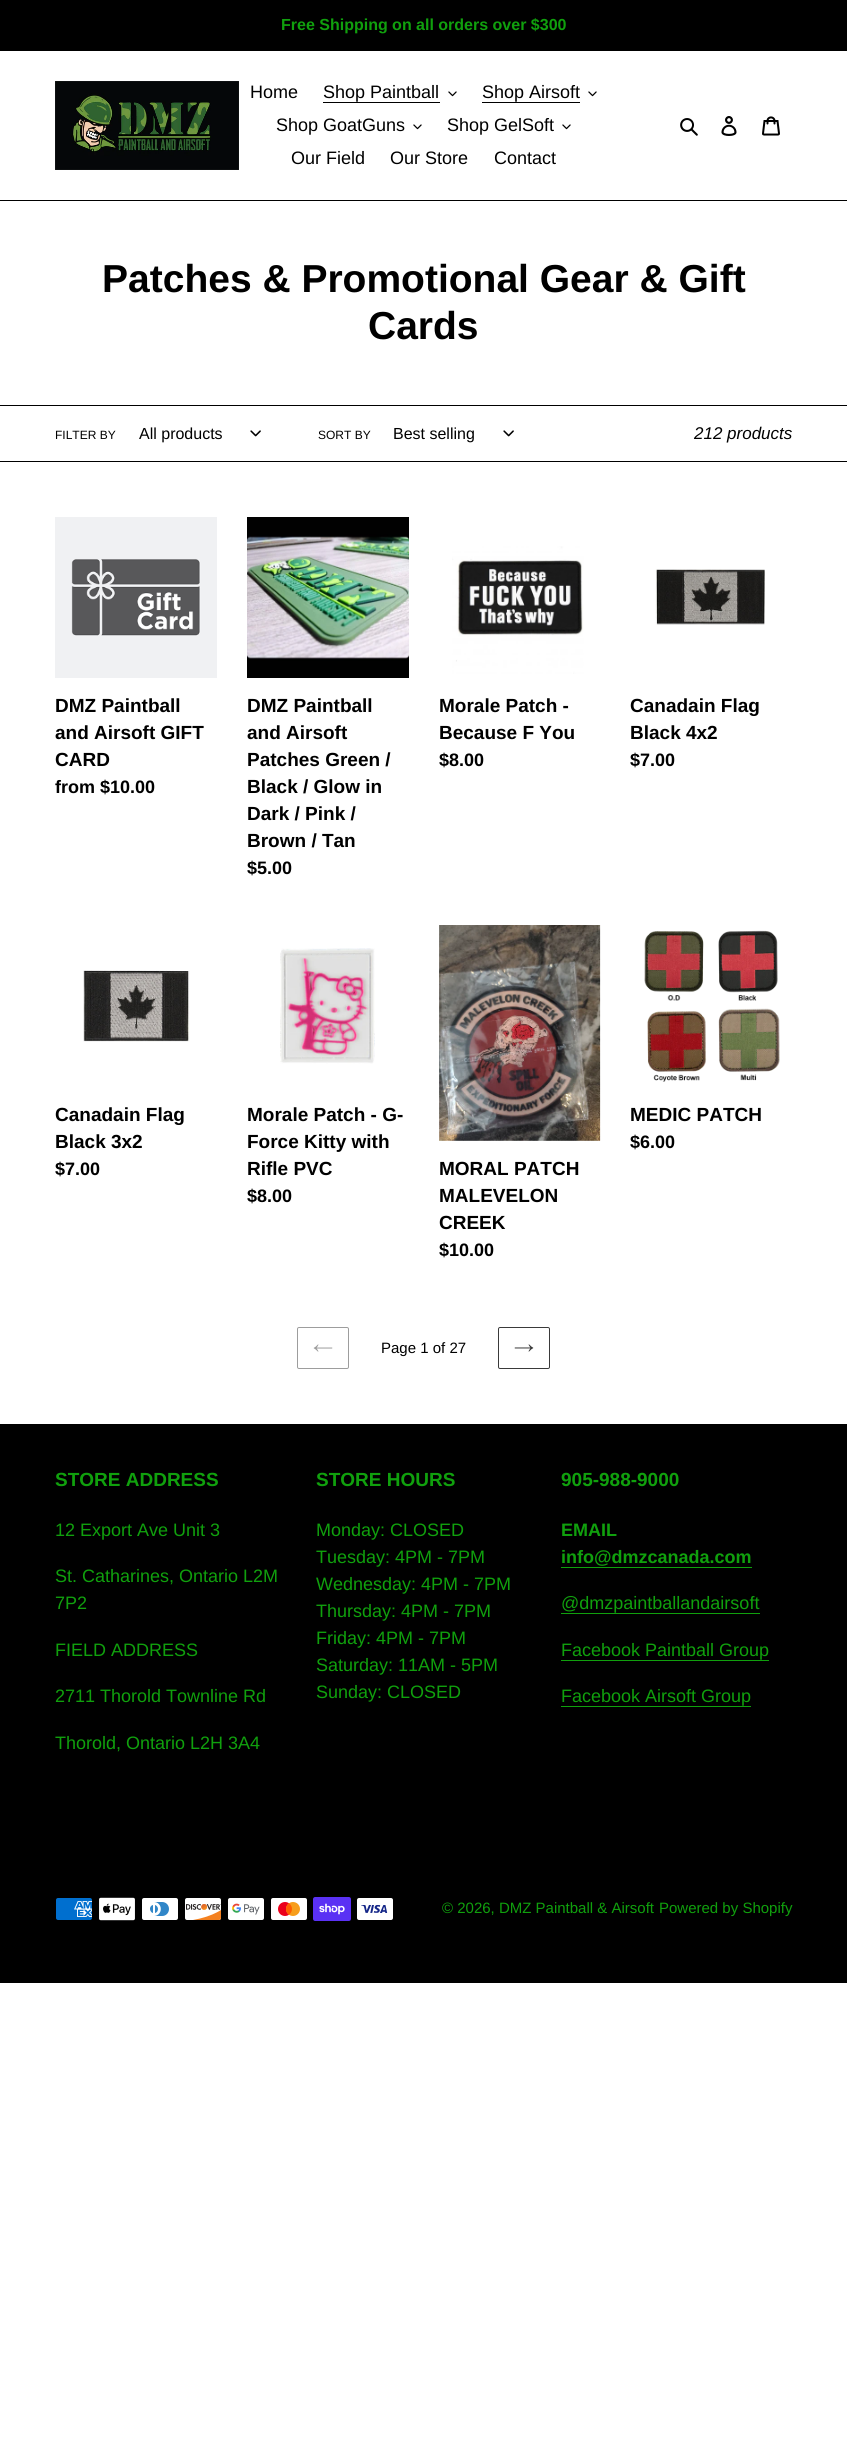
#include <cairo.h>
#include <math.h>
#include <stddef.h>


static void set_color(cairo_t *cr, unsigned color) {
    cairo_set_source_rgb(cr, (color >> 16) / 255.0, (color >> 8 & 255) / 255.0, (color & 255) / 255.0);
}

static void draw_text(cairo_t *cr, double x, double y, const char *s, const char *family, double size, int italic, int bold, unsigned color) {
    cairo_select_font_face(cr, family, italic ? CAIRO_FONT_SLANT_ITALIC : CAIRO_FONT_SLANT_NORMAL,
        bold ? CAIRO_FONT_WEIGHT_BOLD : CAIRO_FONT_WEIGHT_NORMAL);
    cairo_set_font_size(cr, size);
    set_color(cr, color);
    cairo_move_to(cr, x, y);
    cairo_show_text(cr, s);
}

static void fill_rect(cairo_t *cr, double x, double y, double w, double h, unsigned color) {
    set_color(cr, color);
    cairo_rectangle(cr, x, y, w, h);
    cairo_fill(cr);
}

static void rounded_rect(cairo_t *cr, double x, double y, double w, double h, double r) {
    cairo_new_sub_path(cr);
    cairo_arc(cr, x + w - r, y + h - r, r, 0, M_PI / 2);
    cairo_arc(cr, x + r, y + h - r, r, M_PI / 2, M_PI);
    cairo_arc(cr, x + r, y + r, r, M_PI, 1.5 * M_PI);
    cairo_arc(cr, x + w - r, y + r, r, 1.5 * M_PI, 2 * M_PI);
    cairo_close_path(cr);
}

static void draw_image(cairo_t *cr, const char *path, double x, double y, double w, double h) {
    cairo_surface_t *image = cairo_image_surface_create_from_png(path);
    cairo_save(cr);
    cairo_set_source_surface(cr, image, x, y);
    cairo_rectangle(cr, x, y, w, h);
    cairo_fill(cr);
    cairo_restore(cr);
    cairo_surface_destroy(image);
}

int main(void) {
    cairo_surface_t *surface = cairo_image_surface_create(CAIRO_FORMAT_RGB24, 847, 2441);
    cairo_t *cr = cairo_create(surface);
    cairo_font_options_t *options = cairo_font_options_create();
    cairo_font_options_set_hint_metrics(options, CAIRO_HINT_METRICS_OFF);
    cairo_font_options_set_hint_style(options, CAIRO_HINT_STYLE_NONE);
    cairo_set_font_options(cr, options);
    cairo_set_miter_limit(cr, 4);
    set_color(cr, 0xFFFFFF);
    cairo_paint(cr);
    fill_rect(cr, 0, 0, 847, 51, 0x000000);
    draw_text(cr, 281, 30, "Free Shipping on all orders over $300", "Liberation Sans", 16, 0, 1, 0x10A00D);
    fill_rect(cr, 0, 200, 847, 1, 0x000000);
    draw_image(cr, "assets/img1.png", 55, 81, 184, 89);
    draw_text(cr, 250, 98, "Home", "Liberation Sans", 18, 0, 0, 0x000000);
    draw_text(cr, 323, 98, "Shop Paintball", "Liberation Sans", 18, 0, 0, 0x000000);
    fill_rect(cr, 323, 102, 117, 1, 0x000000);
    draw_image(cr, "assets/img2.png", 448, 91, 9, 6);
    draw_text(cr, 482, 98, "Shop Airsoft", "Liberation Sans", 18, 0, 0, 0x000000);
    fill_rect(cr, 482, 102, 98, 1, 0x000000);
    draw_image(cr, "assets/img2.png", 588, 91, 9, 6);
    draw_text(cr, 276, 131, "Shop GoatGuns", "Liberation Sans", 18, 0, 0, 0x000000);
    draw_image(cr, "assets/img2.png", 413, 124, 9, 6);
    draw_text(cr, 447, 131, "Shop GelSoft", "Liberation Sans", 18, 0, 0, 0x000000);
    draw_image(cr, "assets/img2.png", 562, 124, 9, 6);
    draw_text(cr, 291, 164, "Our Field", "Liberation Sans", 18, 0, 0, 0x000000);
    draw_text(cr, 390, 164, "Our Store", "Liberation Sans", 18, 0, 0, 0x000000);
    draw_text(cr, 494, 164, "Contact", "Liberation Sans", 18, 0, 0, 0x000000);
    draw_image(cr, "assets/img3.png", 680, 118, 18, 18);
    draw_image(cr, "assets/img4.png", 721, 116, 16, 20);
    draw_image(cr, "assets/img5.png", 762, 116, 18, 20);
    draw_text(cr, 102, 292, "Patches & Promotional Gear & Gift", "Liberation Sans", 39, 0, 1, 0x000000);
    draw_text(cr, 368, 339, "Cards", "Liberation Sans", 39, 0, 1, 0x000000);
    fill_rect(cr, 0, 405, 847, 1, 0x000000);
    fill_rect(cr, 0, 461, 847, 1, 0x000000);
    draw_text(cr, 55, 439, "FILTER BY", "Liberation Sans", 12, 0, 0, 0x000000);
    draw_text(cr, 139, 439, "All products", "Liberation Sans", 16, 0, 0, 0x000000);
    draw_image(cr, "assets/img6.png", 250, 430, 11, 7);
    draw_text(cr, 318, 439, "SORT BY", "Liberation Sans", 12, 0, 0, 0x000000);
    draw_text(cr, 393, 439, "Best selling", "Liberation Sans", 16, 0, 0, 0x000000);
    draw_image(cr, "assets/img6.png", 503, 430, 11, 7);
    draw_text(cr, 694, 439, "212 products", "Liberation Sans", 17, 1, 0, 0x000000);
    draw_image(cr, "assets/img7.png", 55, 517, 162, 161);
    draw_text(cr, 55, 712, "DMZ Paintball", "Liberation Sans", 19, 0, 1, 0x000000);
    draw_text(cr, 55, 739, "and Airsoft GIFT", "Liberation Sans", 19, 0, 1, 0x000000);
    draw_text(cr, 55, 766, "CARD", "Liberation Sans", 19, 0, 1, 0x000000);
    draw_text(cr, 55, 793, "from $10.00", "Liberation Sans", 18, 0, 1, 0x000000);
    draw_image(cr, "assets/img8.png", 247, 517, 162, 161);
    draw_text(cr, 247, 712, "DMZ Paintball", "Liberation Sans", 19, 0, 1, 0x000000);
    draw_text(cr, 247, 739, "and Airsoft", "Liberation Sans", 19, 0, 1, 0x000000);
    draw_text(cr, 247, 766, "Patches Green /", "Liberation Sans", 19, 0, 1, 0x000000);
    draw_text(cr, 247, 793, "Black / Glow in", "Liberation Sans", 19, 0, 1, 0x000000);
    draw_text(cr, 247, 820, "Dark / Pink /", "Liberation Sans", 19, 0, 1, 0x000000);
    draw_text(cr, 247, 847, "Brown / Tan", "Liberation Sans", 19, 0, 1, 0x000000);
    draw_text(cr, 247, 874, "$5.00", "Liberation Sans", 18, 0, 1, 0x000000);
    draw_image(cr, "assets/img9.png", 452, 546, 132, 128);
    draw_text(cr, 439, 712, "Morale Patch -", "Liberation Sans", 19, 0, 1, 0x000000);
    draw_text(cr, 439, 739, "Because F You", "Liberation Sans", 19, 0, 1, 0x000000);
    draw_text(cr, 439, 766, "$8.00", "Liberation Sans", 18, 0, 1, 0x000000);
    draw_image(cr, "assets/img10.png", 655, 569, 110, 56);
    draw_text(cr, 630, 712, "Canadain Flag", "Liberation Sans", 19, 0, 1, 0x000000);
    draw_text(cr, 630, 739, "Black 4x2", "Liberation Sans", 19, 0, 1, 0x000000);
    draw_text(cr, 630, 766, "$7.00", "Liberation Sans", 18, 0, 1, 0x000000);
    draw_image(cr, "assets/img11.png", 83, 970, 107, 72);
    draw_text(cr, 55, 1121, "Canadain Flag", "Liberation Sans", 19, 0, 1, 0x000000);
    draw_text(cr, 55, 1148, "Black 3x2", "Liberation Sans", 19, 0, 1, 0x000000);
    draw_text(cr, 55, 1175, "$7.00", "Liberation Sans", 18, 0, 1, 0x000000);
    draw_image(cr, "assets/img12.png", 280, 948, 95, 116);
    draw_text(cr, 247, 1121, "Morale Patch - G-", "Liberation Sans", 19, 0, 1, 0x000000);
    draw_text(cr, 247, 1148, "Force Kitty with", "Liberation Sans", 19, 0, 1, 0x000000);
    draw_text(cr, 247, 1175, "Rifle PVC", "Liberation Sans", 19, 0, 1, 0x000000);
    draw_text(cr, 247, 1202, "$8.00", "Liberation Sans", 18, 0, 1, 0x000000);
    draw_image(cr, "assets/img13.png", 644, 930, 136, 152);
    draw_text(cr, 630, 1121, "MEDIC PATCH", "Liberation Sans", 19, 0, 1, 0x000000);
    draw_text(cr, 630, 1148, "$6.00", "Liberation Sans", 18, 0, 1, 0x000000);
    draw_image(cr, "assets/img14.png", 439, 925, 162, 216);
    draw_text(cr, 439, 1175, "MORAL PATCH", "Liberation Sans", 19, 0, 1, 0x000000);
    draw_text(cr, 439, 1202, "MALEVELON", "Liberation Sans", 19, 0, 1, 0x000000);
    draw_text(cr, 439, 1229, "CREEK", "Liberation Sans", 19, 0, 1, 0x000000);
    draw_text(cr, 439, 1256, "$10.00", "Liberation Sans", 18, 0, 1, 0x000000);
    rounded_rect(cr, 297.5, 1327.5, 51, 41, 1.5);
    set_color(cr, 0x9D9D9D);
    cairo_set_line_width(cr, 1);
    cairo_stroke(cr);
    draw_image(cr, "assets/img15.png", 313, 1344, 20, 8);
    draw_text(cr, 381, 1353, "Page 1 of 27", "Liberation Sans", 15, 0, 0, 0x000000);
    rounded_rect(cr, 498.5, 1327.5, 51, 41, 1.5);
    set_color(cr, 0x3A3A3A);
    cairo_stroke(cr);
    draw_image(cr, "assets/img16.png", 514, 1344, 20, 8);
    fill_rect(cr, 0, 1424, 847, 559, 0x000000);
    draw_text(cr, 55, 1486, "STORE ADDRESS", "Liberation Sans", 19, 0, 1, 0x10A00D);
    draw_text(cr, 55, 1536, "12 Export Ave Unit 3", "Liberation Sans", 18, 0, 0, 0x10A00D);
    draw_text(cr, 55, 1582, "St. Catharines, Ontario L2M", "Liberation Sans", 18, 0, 0, 0x10A00D);
    draw_text(cr, 55, 1609, "7P2", "Liberation Sans", 18, 0, 0, 0x10A00D);
    draw_text(cr, 55, 1656, "FIELD ADDRESS", "Liberation Sans", 18, 0, 0, 0x10A00D);
    draw_text(cr, 55, 1702, "2711 Thorold Townline Rd", "Liberation Sans", 18, 0, 0, 0x10A00D);
    draw_text(cr, 55, 1749, "Thorold, Ontario L2H 3A4", "Liberation Sans", 18, 0, 0, 0x10A00D);
    draw_text(cr, 316, 1486, "STORE HOURS", "Liberation Sans", 19, 0, 1, 0x10A00D);
    draw_text(cr, 316, 1536, "Monday: CLOSED", "Liberation Sans", 18, 0, 0, 0x10A00D);
    draw_text(cr, 316, 1563, "Tuesday: 4PM - 7PM", "Liberation Sans", 18, 0, 0, 0x10A00D);
    draw_text(cr, 316, 1590, "Wednesday: 4PM - 7PM", "Liberation Sans", 18, 0, 0, 0x10A00D);
    draw_text(cr, 316, 1617, "Thursday: 4PM - 7PM", "Liberation Sans", 18, 0, 0, 0x10A00D);
    draw_text(cr, 316, 1644, "Friday: 4PM - 7PM", "Liberation Sans", 18, 0, 0, 0x10A00D);
    draw_text(cr, 316, 1671, "Saturday: 11AM - 5PM", "Liberation Sans", 18, 0, 0, 0x10A00D);
    draw_text(cr, 316, 1698, "Sunday: CLOSED", "Liberation Sans", 18, 0, 0, 0x10A00D);
    draw_text(cr, 561, 1486, "905-988-9000", "Liberation Sans", 19, 0, 1, 0x10A00D);
    draw_text(cr, 561, 1536, "EMAIL", "Liberation Sans", 18, 0, 1, 0x10A00D);
    draw_text(cr, 561, 1563, "info@dmzcanada.com", "Liberation Sans", 18, 0, 1, 0x10A00D);
    fill_rect(cr, 561, 1567, 191, 1, 0x10A00D);
    draw_text(cr, 561, 1609, "@dmzpaintballandairsoft", "Liberation Sans", 18, 0, 0, 0x10A00D);
    fill_rect(cr, 561, 1613, 199, 1, 0x10A00D);
    draw_text(cr, 561, 1656, "Facebook Paintball Group", "Liberation Sans", 18, 0, 0, 0x10A00D);
    fill_rect(cr, 561, 1660, 208, 1, 0x10A00D);
    draw_text(cr, 561, 1702, "Facebook Airsoft Group", "Liberation Sans", 18, 0, 0, 0x10A00D);
    fill_rect(cr, 561, 1706, 190, 1, 0x10A00D);
    draw_image(cr, "assets/img17.png", 56, 1898, 36, 22);
    draw_image(cr, "assets/img18.png", 99, 1897, 36, 24);
    draw_image(cr, "assets/img19.png", 142, 1898, 36, 22);
    draw_image(cr, "assets/img20.png", 185, 1898, 37, 22);
    draw_image(cr, "assets/img21.png", 228, 1898, 36, 22);
    draw_image(cr, "assets/img22.png", 271, 1898, 36, 22);
    draw_image(cr, "assets/img23.png", 313, 1897, 38, 24);
    draw_image(cr, "assets/img24.png", 357, 1898, 36, 22);
    draw_text(cr, 442, 1913, "© 2026, DMZ Paintball & Airsoft", "Liberation Sans", 15, 0, 0, 0x10A00D);
    draw_text(cr, 659, 1913, "Powered by Shopify", "Liberation Sans", 15, 0, 0, 0x10A00D);
    cairo_surface_write_to_png(surface, "output.png");
    cairo_font_options_destroy(options);
    cairo_destroy(cr);
    cairo_surface_destroy(surface);
    return 0;
}
